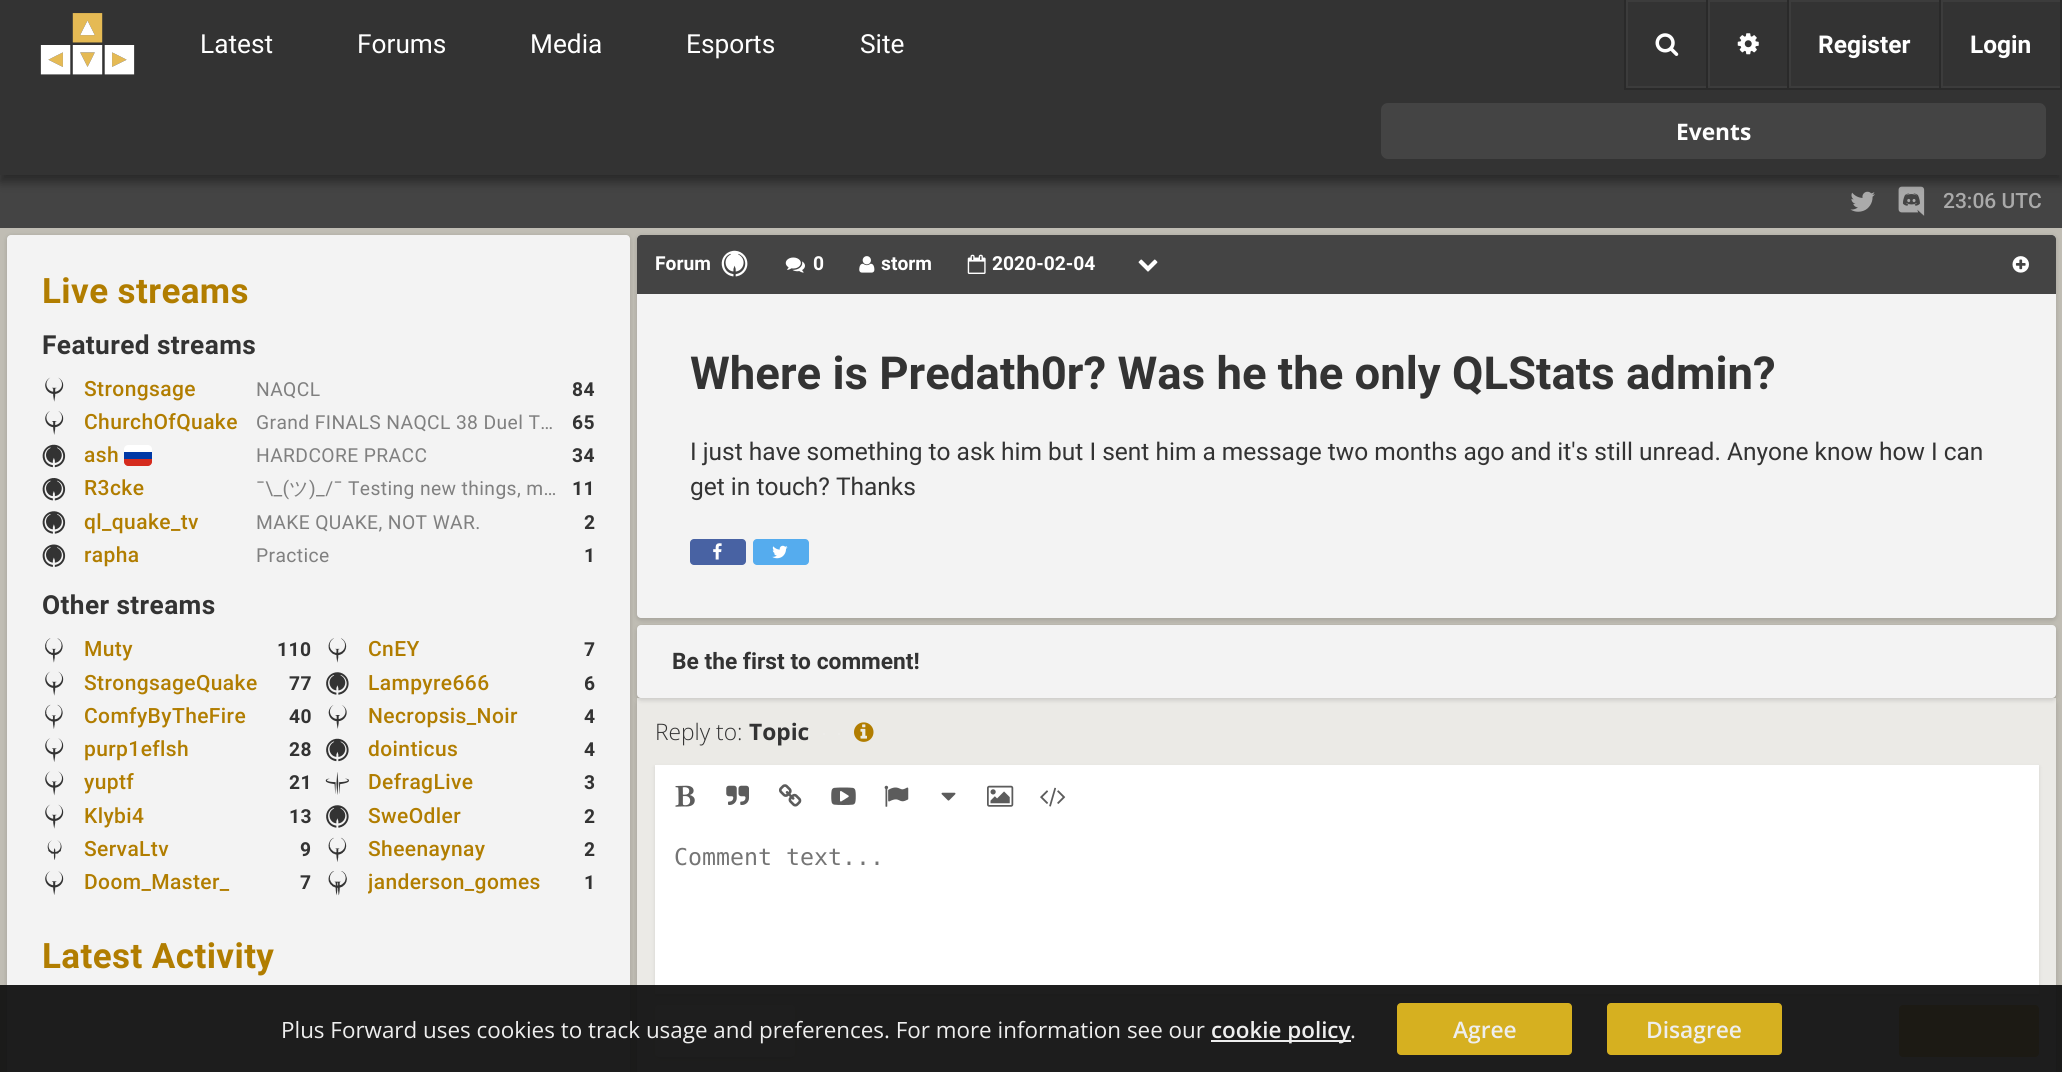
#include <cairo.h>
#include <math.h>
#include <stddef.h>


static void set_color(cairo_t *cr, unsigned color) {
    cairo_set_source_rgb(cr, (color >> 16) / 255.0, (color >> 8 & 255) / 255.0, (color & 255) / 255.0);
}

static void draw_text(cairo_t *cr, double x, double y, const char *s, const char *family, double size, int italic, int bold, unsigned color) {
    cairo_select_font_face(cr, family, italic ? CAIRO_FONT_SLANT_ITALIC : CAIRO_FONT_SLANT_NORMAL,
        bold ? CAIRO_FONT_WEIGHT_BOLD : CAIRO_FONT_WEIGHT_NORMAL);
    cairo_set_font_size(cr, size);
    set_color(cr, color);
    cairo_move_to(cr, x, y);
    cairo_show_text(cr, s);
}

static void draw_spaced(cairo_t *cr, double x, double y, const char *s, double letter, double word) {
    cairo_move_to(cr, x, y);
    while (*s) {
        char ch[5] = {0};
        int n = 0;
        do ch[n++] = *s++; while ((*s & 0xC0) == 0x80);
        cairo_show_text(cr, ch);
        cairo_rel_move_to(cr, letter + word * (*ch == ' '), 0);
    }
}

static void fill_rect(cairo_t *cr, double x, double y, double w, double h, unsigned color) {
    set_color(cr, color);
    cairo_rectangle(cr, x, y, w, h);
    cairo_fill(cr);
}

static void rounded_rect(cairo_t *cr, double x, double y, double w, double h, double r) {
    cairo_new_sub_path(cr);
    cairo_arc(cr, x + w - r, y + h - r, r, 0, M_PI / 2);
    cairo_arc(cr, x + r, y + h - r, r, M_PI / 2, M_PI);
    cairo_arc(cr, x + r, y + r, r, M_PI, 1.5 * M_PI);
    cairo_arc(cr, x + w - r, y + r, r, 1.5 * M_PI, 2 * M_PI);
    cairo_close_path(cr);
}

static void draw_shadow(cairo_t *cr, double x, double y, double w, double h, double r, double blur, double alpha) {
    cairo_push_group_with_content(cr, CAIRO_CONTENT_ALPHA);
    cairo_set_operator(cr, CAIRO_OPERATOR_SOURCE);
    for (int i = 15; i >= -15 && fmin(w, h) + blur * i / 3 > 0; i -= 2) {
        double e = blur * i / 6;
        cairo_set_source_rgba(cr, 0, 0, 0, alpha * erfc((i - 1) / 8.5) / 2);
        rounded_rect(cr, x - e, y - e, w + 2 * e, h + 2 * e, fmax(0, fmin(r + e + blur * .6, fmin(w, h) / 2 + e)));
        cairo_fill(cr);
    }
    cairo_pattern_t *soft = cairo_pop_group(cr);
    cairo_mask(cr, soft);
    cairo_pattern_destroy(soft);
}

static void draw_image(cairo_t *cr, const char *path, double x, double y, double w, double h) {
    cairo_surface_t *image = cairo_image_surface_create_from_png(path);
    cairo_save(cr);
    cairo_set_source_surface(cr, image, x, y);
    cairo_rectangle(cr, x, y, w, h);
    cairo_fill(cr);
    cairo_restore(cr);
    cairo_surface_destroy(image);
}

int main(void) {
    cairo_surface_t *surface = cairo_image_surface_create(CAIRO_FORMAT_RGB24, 2062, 1072);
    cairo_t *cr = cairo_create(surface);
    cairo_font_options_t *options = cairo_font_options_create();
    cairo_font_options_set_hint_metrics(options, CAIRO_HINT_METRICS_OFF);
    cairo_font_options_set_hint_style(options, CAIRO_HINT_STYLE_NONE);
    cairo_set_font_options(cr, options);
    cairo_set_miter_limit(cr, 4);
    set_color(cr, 0xC0BDB4);
    cairo_paint(cr);
    fill_rect(cr, 0, 175, 2062, 53, 0x444444);
    draw_image(cr, "assets/img4.png", 1850, 191, 25, 21);
    draw_image(cr, "assets/img5.png", 1898, 186, 27, 30);
    set_color(cr, 0x000000);
    draw_shadow(cr, 0, 7, 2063, 175, 0, 5, 0.4);
    fill_rect(cr, 0, 0, 2062, 175, 0x333333);
    draw_image(cr, "assets/img1.png", 40, 13, 95, 62);
    draw_text(cr, 200, 53, "Latest", "Roboto", 26.25, 0, 0, 0xFFFFFF);
    draw_text(cr, 357, 53, "Forums", "Roboto", 26.25, 0, 0, 0xFFFFFF);
    draw_text(cr, 530, 53, "Media", "Roboto", 26.25, 0, 0, 0xFFFFFF);
    draw_text(cr, 686, 53, "Esports", "Roboto", 26.25, 0, 0, 0xFFFFFF);
    draw_text(cr, 860, 53, "Site", "Roboto", 26.25, 0, 0, 0xFFFFFF);
    cairo_save(cr);
    cairo_rectangle(cr, 1624, 0, 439, 88);
    cairo_clip(cr);
    set_color(cr, 0x3C3C3C);
    cairo_set_fill_rule(cr, CAIRO_FILL_RULE_EVEN_ODD);
    cairo_new_path(cr);
    cairo_move_to(cr, 1451, -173);
    cairo_line_to(cr, 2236, -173);
    cairo_line_to(cr, 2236, 261);
    cairo_line_to(cr, 1451, 261);
    cairo_close_path(cr);
    cairo_move_to(cr, 1628, 2);
    cairo_line_to(cr, 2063, 2);
    cairo_line_to(cr, 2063, 86);
    cairo_line_to(cr, 1628, 86);
    cairo_close_path(cr);
    cairo_fill(cr);
    cairo_restore(cr);
    fill_rect(cr, 1624, 88, 438, 2, 0x2A2A2A);
    fill_rect(cr, 1624, 0, 2, 88, 0x2A2A2A);
    fill_rect(cr, 1706, 0, 2, 88, 0x2A2A2A);
    draw_image(cr, "assets/img2.png", 1655, 33, 24, 23);
    fill_rect(cr, 1787, 0, 2, 88, 0x2A2A2A);
    fill_rect(cr, 1708, 0, 2, 88, 0x3C3C3C);
    draw_image(cr, "assets/img3.png", 1737, 33, 22, 22);
    fill_rect(cr, 1939, 0, 2, 88, 0x2A2A2A);
    fill_rect(cr, 1789, 0, 2, 88, 0x3C3C3C);
    draw_text(cr, 1818, 53, "Register", "Roboto", 24.5, 0, 1, 0xFFFFFF);
    fill_rect(cr, 2060, 0, 2, 88, 0x2A2A2A);
    fill_rect(cr, 1941, 0, 2, 88, 0x3C3C3C);
    draw_text(cr, 1970, 53, "Login", "Roboto", 24.5, 0, 1, 0xFFFFFF);
    set_color(cr, 0x444444);
    rounded_rect(cr, 1381, 103, 665, 56, 7);
    cairo_fill(cr);
    draw_text(cr, 1676, 140, "Events", "Open Sans", 22.75, 0, 1, 0xFFFFFF);
    draw_text(cr, 1943, 208, "23:06 UTC", "Roboto Medium", 21, 0, 0, 0xAAAAAA);
    set_color(cr, 0x000000);
    draw_shadow(cr, 637, 236, 1419, 384, 4, 2.5, 0.15);
    set_color(cr, 0xF3F3F3);
    rounded_rect(cr, 637, 235, 1419, 383, 4);
    cairo_fill(cr);
    set_color(cr, 0x444444);
    cairo_new_path(cr);
    cairo_move_to(cr, 641, 235);
    cairo_line_to(cr, 2052, 235);
    cairo_curve_to(cr, 2054, 235, 2056, 237, 2056, 239);
    cairo_line_to(cr, 2056, 294);
    cairo_line_to(cr, 637, 294);
    cairo_line_to(cr, 637, 239);
    cairo_curve_to(cr, 637, 237, 639, 235, 641, 235);
    cairo_close_path(cr);
    cairo_fill(cr);
    set_color(cr, 0x000000);
    draw_shadow(cr, 7, 236, 623, 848, 4, 2.5, 0.15);
    set_color(cr, 0xF3F3F3);
    rounded_rect(cr, 7, 235, 623, 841, 4);
    cairo_fill(cr);
    cairo_select_font_face(cr, "Roboto", CAIRO_FONT_SLANT_NORMAL, CAIRO_FONT_WEIGHT_BOLD);
    cairo_set_font_size(cr, 35);
    set_color(cr, 0xB17D00);
    draw_spaced(cr, 42, 303, "Live streams", 0.4, 0);
    cairo_set_font_size(cr, 26.25);
    set_color(cr, 0x333333);
    draw_spaced(cr, 42, 354, "Featured streams", 0.4, 0);
    draw_image(cr, "assets/img6.png", 45, 377, 19, 25);
    cairo_select_font_face(cr, "Roboto Medium", CAIRO_FONT_SLANT_NORMAL, CAIRO_FONT_WEIGHT_NORMAL);
    cairo_set_font_size(cr, 21);
    set_color(cr, 0xB17D00);
    draw_spaced(cr, 84, 396, "Strongsage", 0.4, 0);
    cairo_select_font_face(cr, "Roboto", CAIRO_FONT_SLANT_NORMAL, CAIRO_FONT_WEIGHT_NORMAL);
    cairo_set_font_size(cr, 19.25);
    set_color(cr, 0x808080);
    draw_spaced(cr, 256, 396, "NAQCL", 0.4, 0);
    cairo_select_font_face(cr, "Roboto", CAIRO_FONT_SLANT_NORMAL, CAIRO_FONT_WEIGHT_BOLD);
    set_color(cr, 0x333333);
    draw_spaced(cr, 572, 396, "84", 0.4, 0);
    draw_image(cr, "assets/img7.png", 45, 411, 19, 24);
    cairo_select_font_face(cr, "Roboto Medium", CAIRO_FONT_SLANT_NORMAL, CAIRO_FONT_WEIGHT_NORMAL);
    cairo_set_font_size(cr, 21);
    set_color(cr, 0xB17D00);
    draw_spaced(cr, 84, 429, "ChurchOfQuake", 0.4, 0);
    cairo_select_font_face(cr, "Roboto", CAIRO_FONT_SLANT_NORMAL, CAIRO_FONT_WEIGHT_NORMAL);
    cairo_set_font_size(cr, 19.25);
    set_color(cr, 0x808080);
    draw_spaced(cr, 256, 429, "Grand FINALS NAQCL 38 Duel T…", 0.4, 0);
    cairo_select_font_face(cr, "Roboto", CAIRO_FONT_SLANT_NORMAL, CAIRO_FONT_WEIGHT_BOLD);
    set_color(cr, 0x333333);
    draw_spaced(cr, 572, 429, "65", 0.4, 0);
    draw_image(cr, "assets/img8.png", 42, 444, 24, 24);
    cairo_select_font_face(cr, "Roboto Medium", CAIRO_FONT_SLANT_NORMAL, CAIRO_FONT_WEIGHT_NORMAL);
    cairo_set_font_size(cr, 21);
    set_color(cr, 0xB17D00);
    draw_spaced(cr, 84, 462, "ash", 0.4, 0);
    set_color(cr, 0xFFFFFF);
    cairo_new_path(cr);
    cairo_move_to(cr, 128, 445);
    cairo_line_to(cr, 148, 445);
    cairo_curve_to(cr, 150, 445, 152, 447, 152, 449);
    cairo_line_to(cr, 152, 452);
    cairo_line_to(cr, 124, 452);
    cairo_line_to(cr, 124, 449);
    cairo_curve_to(cr, 124, 447, 126, 445, 128, 445);
    cairo_close_path(cr);
    cairo_fill(cr);
    fill_rect(cr, 124, 452, 28, 7, 0x0039A6);
    set_color(cr, 0xD52B1E);
    cairo_new_path(cr);
    cairo_move_to(cr, 124, 459);
    cairo_line_to(cr, 152, 459);
    cairo_line_to(cr, 152, 462);
    cairo_curve_to(cr, 152, 464, 150, 466, 148, 466);
    cairo_line_to(cr, 128, 466);
    cairo_curve_to(cr, 126, 466, 124, 464, 124, 462);
    cairo_close_path(cr);
    cairo_fill(cr);
    cairo_select_font_face(cr, "Roboto", CAIRO_FONT_SLANT_NORMAL, CAIRO_FONT_WEIGHT_NORMAL);
    cairo_set_font_size(cr, 19.25);
    set_color(cr, 0x808080);
    draw_spaced(cr, 256, 462, "HARDCORE PRACC", 0.4, 0);
    cairo_select_font_face(cr, "Roboto", CAIRO_FONT_SLANT_NORMAL, CAIRO_FONT_WEIGHT_BOLD);
    set_color(cr, 0x333333);
    draw_spaced(cr, 572, 462, "34", 0.4, 0);
    draw_image(cr, "assets/img9.png", 42, 478, 24, 23);
    cairo_select_font_face(cr, "Roboto Medium", CAIRO_FONT_SLANT_NORMAL, CAIRO_FONT_WEIGHT_NORMAL);
    cairo_set_font_size(cr, 21);
    set_color(cr, 0xB17D00);
    draw_spaced(cr, 84, 495, "R3cke", 0.4, 0);
    cairo_select_font_face(cr, "Roboto", CAIRO_FONT_SLANT_NORMAL, CAIRO_FONT_WEIGHT_NORMAL);
    cairo_set_font_size(cr, 19.25);
    set_color(cr, 0x808080);
    draw_spaced(cr, 256, 495, "¯\\_(", 0.4, 0);
    cairo_select_font_face(cr, "WenQuanYi Zen Hei Medium", CAIRO_FONT_SLANT_NORMAL, CAIRO_FONT_WEIGHT_NORMAL);
    draw_spaced(cr, 289, 495, "ツ", 0.4, 0);
    cairo_select_font_face(cr, "Roboto", CAIRO_FONT_SLANT_NORMAL, CAIRO_FONT_WEIGHT_NORMAL);
    draw_spaced(cr, 309, 495, ")_/¯ Testing new things, m…", 0.4, 0);
    cairo_select_font_face(cr, "Roboto", CAIRO_FONT_SLANT_NORMAL, CAIRO_FONT_WEIGHT_BOLD);
    set_color(cr, 0x333333);
    draw_spaced(cr, 572, 495, "11", 0.4, 0);
    draw_image(cr, "assets/img10.png", 42, 511, 24, 23);
    cairo_select_font_face(cr, "Roboto Medium", CAIRO_FONT_SLANT_NORMAL, CAIRO_FONT_WEIGHT_NORMAL);
    cairo_set_font_size(cr, 21);
    set_color(cr, 0xB17D00);
    draw_spaced(cr, 84, 529, "ql_quake_tv", 0.4, 0);
    cairo_select_font_face(cr, "Roboto", CAIRO_FONT_SLANT_NORMAL, CAIRO_FONT_WEIGHT_NORMAL);
    cairo_set_font_size(cr, 19.25);
    set_color(cr, 0x808080);
    draw_spaced(cr, 256, 529, "MAKE QUAKE, NOT WAR.", 0.4, 0);
    cairo_select_font_face(cr, "Roboto", CAIRO_FONT_SLANT_NORMAL, CAIRO_FONT_WEIGHT_BOLD);
    set_color(cr, 0x333333);
    draw_spaced(cr, 584, 529, "2", 0.4, 0);
    draw_image(cr, "assets/img11.png", 42, 544, 24, 23);
    cairo_select_font_face(cr, "Roboto Medium", CAIRO_FONT_SLANT_NORMAL, CAIRO_FONT_WEIGHT_NORMAL);
    cairo_set_font_size(cr, 21);
    set_color(cr, 0xB17D00);
    draw_spaced(cr, 84, 562, "rapha", 0.4, 0);
    cairo_select_font_face(cr, "Roboto", CAIRO_FONT_SLANT_NORMAL, CAIRO_FONT_WEIGHT_NORMAL);
    cairo_set_font_size(cr, 19.25);
    set_color(cr, 0x808080);
    draw_spaced(cr, 256, 562, "Practice", 0.4, 0);
    cairo_select_font_face(cr, "Roboto", CAIRO_FONT_SLANT_NORMAL, CAIRO_FONT_WEIGHT_BOLD);
    set_color(cr, 0x333333);
    draw_spaced(cr, 584, 562, "1", 0.4, 0);
    cairo_set_font_size(cr, 26.25);
    draw_spaced(cr, 42, 614, "Other streams", 0.4, 0);
    draw_image(cr, "assets/img12.png", 45, 638, 18, 25);
    cairo_select_font_face(cr, "Roboto Medium", CAIRO_FONT_SLANT_NORMAL, CAIRO_FONT_WEIGHT_NORMAL);
    cairo_set_font_size(cr, 21);
    set_color(cr, 0xB17D00);
    draw_spaced(cr, 84, 656, "Muty", 0.4, 0);
    cairo_select_font_face(cr, "Roboto", CAIRO_FONT_SLANT_NORMAL, CAIRO_FONT_WEIGHT_BOLD);
    cairo_set_font_size(cr, 19.25);
    set_color(cr, 0x333333);
    draw_spaced(cr, 277, 656, "110", 0.4, 0);
    draw_image(cr, "assets/img6.png", 45, 671, 19, 25);
    cairo_select_font_face(cr, "Roboto Medium", CAIRO_FONT_SLANT_NORMAL, CAIRO_FONT_WEIGHT_NORMAL);
    cairo_set_font_size(cr, 21);
    set_color(cr, 0xB17D00);
    draw_spaced(cr, 84, 690, "StrongsageQuake", 0.4, 0);
    cairo_select_font_face(cr, "Roboto", CAIRO_FONT_SLANT_NORMAL, CAIRO_FONT_WEIGHT_BOLD);
    cairo_set_font_size(cr, 19.25);
    set_color(cr, 0x333333);
    draw_spaced(cr, 289, 690, "77", 0.4, 0);
    draw_image(cr, "assets/img13.png", 45, 704, 18, 25);
    cairo_select_font_face(cr, "Roboto Medium", CAIRO_FONT_SLANT_NORMAL, CAIRO_FONT_WEIGHT_NORMAL);
    cairo_set_font_size(cr, 21);
    set_color(cr, 0xB17D00);
    draw_spaced(cr, 84, 723, "ComfyByTheFire", 0.4, 0);
    cairo_select_font_face(cr, "Roboto", CAIRO_FONT_SLANT_NORMAL, CAIRO_FONT_WEIGHT_BOLD);
    cairo_set_font_size(cr, 19.25);
    set_color(cr, 0x333333);
    draw_spaced(cr, 289, 723, "40", 0.4, 0);
    draw_image(cr, "assets/img14.png", 45, 738, 19, 24);
    cairo_select_font_face(cr, "Roboto Medium", CAIRO_FONT_SLANT_NORMAL, CAIRO_FONT_WEIGHT_NORMAL);
    cairo_set_font_size(cr, 21);
    set_color(cr, 0xB17D00);
    draw_spaced(cr, 84, 756, "purp1eflsh", 0.4, 0);
    cairo_select_font_face(cr, "Roboto", CAIRO_FONT_SLANT_NORMAL, CAIRO_FONT_WEIGHT_BOLD);
    cairo_set_font_size(cr, 19.25);
    set_color(cr, 0x333333);
    draw_spaced(cr, 289, 756, "28", 0.4, 0);
    draw_image(cr, "assets/img15.png", 45, 771, 19, 25);
    cairo_select_font_face(cr, "Roboto Medium", CAIRO_FONT_SLANT_NORMAL, CAIRO_FONT_WEIGHT_NORMAL);
    cairo_set_font_size(cr, 21);
    set_color(cr, 0xB17D00);
    draw_spaced(cr, 84, 789, "yuptf", 0.4, 0);
    cairo_select_font_face(cr, "Roboto", CAIRO_FONT_SLANT_NORMAL, CAIRO_FONT_WEIGHT_BOLD);
    cairo_set_font_size(cr, 19.25);
    set_color(cr, 0x333333);
    draw_spaced(cr, 289, 789, "21", 0.4, 0);
    draw_image(cr, "assets/img6.png", 45, 804, 19, 25);
    cairo_select_font_face(cr, "Roboto Medium", CAIRO_FONT_SLANT_NORMAL, CAIRO_FONT_WEIGHT_NORMAL);
    cairo_set_font_size(cr, 21);
    set_color(cr, 0xB17D00);
    draw_spaced(cr, 84, 823, "Klybi4", 0.4, 0);
    cairo_select_font_face(cr, "Roboto", CAIRO_FONT_SLANT_NORMAL, CAIRO_FONT_WEIGHT_BOLD);
    cairo_set_font_size(cr, 19.25);
    set_color(cr, 0x333333);
    draw_spaced(cr, 289, 823, "13", 0.4, 0);
    draw_image(cr, "assets/img16.png", 47, 840, 15, 20);
    cairo_select_font_face(cr, "Roboto Medium", CAIRO_FONT_SLANT_NORMAL, CAIRO_FONT_WEIGHT_NORMAL);
    cairo_set_font_size(cr, 21);
    set_color(cr, 0xB17D00);
    draw_spaced(cr, 84, 856, "ServaLtv", 0.4, 0);
    cairo_select_font_face(cr, "Roboto", CAIRO_FONT_SLANT_NORMAL, CAIRO_FONT_WEIGHT_BOLD);
    cairo_set_font_size(cr, 19.25);
    set_color(cr, 0x333333);
    draw_spaced(cr, 300, 856, "9", 0.4, 0);
    draw_image(cr, "assets/img14.png", 45, 871, 19, 24);
    cairo_select_font_face(cr, "Roboto Medium", CAIRO_FONT_SLANT_NORMAL, CAIRO_FONT_WEIGHT_NORMAL);
    cairo_set_font_size(cr, 21);
    set_color(cr, 0xB17D00);
    draw_spaced(cr, 84, 889, "Doom_Master_", 0.4, 0);
    cairo_select_font_face(cr, "Roboto", CAIRO_FONT_SLANT_NORMAL, CAIRO_FONT_WEIGHT_BOLD);
    cairo_set_font_size(cr, 19.25);
    set_color(cr, 0x333333);
    draw_spaced(cr, 300, 889, "7", 0.4, 0);
    draw_image(cr, "assets/img17.png", 328, 638, 19, 25);
    cairo_select_font_face(cr, "Roboto Medium", CAIRO_FONT_SLANT_NORMAL, CAIRO_FONT_WEIGHT_NORMAL);
    cairo_set_font_size(cr, 21);
    set_color(cr, 0xB17D00);
    draw_spaced(cr, 368, 656, "CnEY", 0.4, 0);
    cairo_select_font_face(cr, "Roboto", CAIRO_FONT_SLANT_NORMAL, CAIRO_FONT_WEIGHT_BOLD);
    cairo_set_font_size(cr, 19.25);
    set_color(cr, 0x333333);
    draw_spaced(cr, 584, 656, "7", 0.4, 0);
    draw_image(cr, "assets/img18.png", 326, 672, 23, 23);
    cairo_select_font_face(cr, "Roboto Medium", CAIRO_FONT_SLANT_NORMAL, CAIRO_FONT_WEIGHT_NORMAL);
    cairo_set_font_size(cr, 21);
    set_color(cr, 0xB17D00);
    draw_spaced(cr, 368, 690, "Lampyre666", 0.4, 0);
    cairo_select_font_face(cr, "Roboto", CAIRO_FONT_SLANT_NORMAL, CAIRO_FONT_WEIGHT_BOLD);
    cairo_set_font_size(cr, 19.25);
    set_color(cr, 0x333333);
    draw_spaced(cr, 584, 690, "6", 0.4, 0);
    draw_image(cr, "assets/img19.png", 328, 705, 19, 24);
    cairo_select_font_face(cr, "Roboto Medium", CAIRO_FONT_SLANT_NORMAL, CAIRO_FONT_WEIGHT_NORMAL);
    cairo_set_font_size(cr, 21);
    set_color(cr, 0xB17D00);
    draw_spaced(cr, 368, 723, "Necropsis_Noir", 0.4, 0);
    cairo_select_font_face(cr, "Roboto", CAIRO_FONT_SLANT_NORMAL, CAIRO_FONT_WEIGHT_BOLD);
    cairo_set_font_size(cr, 19.25);
    set_color(cr, 0x333333);
    draw_spaced(cr, 584, 723, "4", 0.4, 0);
    draw_image(cr, "assets/img20.png", 326, 738, 23, 24);
    cairo_select_font_face(cr, "Roboto Medium", CAIRO_FONT_SLANT_NORMAL, CAIRO_FONT_WEIGHT_NORMAL);
    cairo_set_font_size(cr, 21);
    set_color(cr, 0xB17D00);
    draw_spaced(cr, 368, 756, "dointicus", 0.4, 0);
    cairo_select_font_face(cr, "Roboto", CAIRO_FONT_SLANT_NORMAL, CAIRO_FONT_WEIGHT_BOLD);
    cairo_set_font_size(cr, 19.25);
    set_color(cr, 0x333333);
    draw_spaced(cr, 584, 756, "4", 0.4, 0);
    draw_image(cr, "assets/img21.png", 325, 772, 24, 23);
    cairo_select_font_face(cr, "Roboto Medium", CAIRO_FONT_SLANT_NORMAL, CAIRO_FONT_WEIGHT_NORMAL);
    cairo_set_font_size(cr, 21);
    set_color(cr, 0xB17D00);
    draw_spaced(cr, 368, 789, "DefragLive", 0.4, 0);
    cairo_select_font_face(cr, "Roboto", CAIRO_FONT_SLANT_NORMAL, CAIRO_FONT_WEIGHT_BOLD);
    cairo_set_font_size(cr, 19.25);
    set_color(cr, 0x333333);
    draw_spaced(cr, 584, 789, "3", 0.4, 0);
    draw_image(cr, "assets/img18.png", 326, 805, 23, 23);
    cairo_select_font_face(cr, "Roboto Medium", CAIRO_FONT_SLANT_NORMAL, CAIRO_FONT_WEIGHT_NORMAL);
    cairo_set_font_size(cr, 21);
    set_color(cr, 0xB17D00);
    draw_spaced(cr, 368, 823, "SweOdler", 0.4, 0);
    cairo_select_font_face(cr, "Roboto", CAIRO_FONT_SLANT_NORMAL, CAIRO_FONT_WEIGHT_BOLD);
    cairo_set_font_size(cr, 19.25);
    set_color(cr, 0x333333);
    draw_spaced(cr, 584, 823, "2", 0.4, 0);
    draw_image(cr, "assets/img22.png", 328, 837, 19, 25);
    cairo_select_font_face(cr, "Roboto Medium", CAIRO_FONT_SLANT_NORMAL, CAIRO_FONT_WEIGHT_NORMAL);
    cairo_set_font_size(cr, 21);
    set_color(cr, 0xB17D00);
    draw_spaced(cr, 368, 856, "Sheenaynay", 0.4, 0);
    cairo_select_font_face(cr, "Roboto", CAIRO_FONT_SLANT_NORMAL, CAIRO_FONT_WEIGHT_BOLD);
    cairo_set_font_size(cr, 19.25);
    set_color(cr, 0x333333);
    draw_spaced(cr, 584, 856, "2", 0.4, 0);
    draw_image(cr, "assets/img23.png", 328, 871, 19, 25);
    cairo_save(cr);
    cairo_rectangle(cr, 368, 866, 208, 34);
    cairo_clip(cr);
    cairo_select_font_face(cr, "Roboto Medium", CAIRO_FONT_SLANT_NORMAL, CAIRO_FONT_WEIGHT_NORMAL);
    cairo_set_font_size(cr, 21);
    set_color(cr, 0xB17D00);
    draw_spaced(cr, 368, 889, "janderson_gomes", 0.4, 0);
    cairo_restore(cr);
    draw_spaced(cr, 584, 889, "1", 0.4, 0);
    cairo_set_font_size(cr, 35);
    set_color(cr, 0xB17D00);
    draw_spaced(cr, 42, 968, "Latest Activity", 0.4, 0);
    draw_text(cr, 655, 270, "Forum", "Roboto", 19.25, 0, 1, 0xFFFFFF);
    draw_image(cr, "assets/img24.png", 721, 250, 27, 27);
    draw_image(cr, "assets/img25.png", 785, 257, 20, 16);
    draw_text(cr, 813, 270, "0", "Roboto", 19.25, 0, 1, 0xFFFFFF);
    draw_image(cr, "assets/img26.png", 859, 256, 16, 17);
    draw_text(cr, 881, 270, "storm", "Roboto", 19.25, 0, 1, 0xFFFFFF);
    draw_image(cr, "assets/img27.png", 967, 254, 19, 20);
    draw_text(cr, 992, 270, "2020-02-04", "Roboto", 19.25, 0, 1, 0xFFFFFF);
    draw_image(cr, "assets/img28.png", 1138, 259, 20, 13);
    draw_image(cr, "assets/img29.png", 2012, 256, 17, 17);
    draw_text(cr, 690, 389, "Where is Predath0r? Was he the only QLStats admin?", "Roboto", 45.5, 0, 1, 0x333333);
    draw_text(cr, 690, 460, "I just have something to ask him but I sent him a message two months ago and it's still unread. Anyone know how I can", "Roboto", 24.5, 0, 0, 0x333333);
    draw_text(cr, 690, 495, "get in touch? Thanks", "Roboto", 24.5, 0, 0, 0x333333);
    set_color(cr, 0x4862A3);
    rounded_rect(cr, 690, 539, 56, 26, 4);
    cairo_fill(cr);
    draw_image(cr, "assets/img30.png", 713, 543, 9, 17);
    set_color(cr, 0x55ACEE);
    rounded_rect(cr, 753, 539, 56, 26, 4);
    cairo_fill(cr);
    draw_image(cr, "assets/img31.png", 772, 545, 16, 14);
    set_color(cr, 0x000000);
    draw_shadow(cr, 637, 700, 1419, 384, 4, 2.5, 0.15);
    fill_rect(cr, 637, 698, 1419, 374, 0xEBEAE6);
    set_color(cr, 0x000000);
    draw_shadow(cr, 637, 627, 1419, 73, 4, 2.5, 0.15);
    set_color(cr, 0xF3F3F3);
    rounded_rect(cr, 637, 625, 1419, 73, 4);
    cairo_fill(cr);
    draw_text(cr, 672, 669, "Be the first to comment!", "Roboto", 22.75, 0, 1, 0x333333);
    draw_text(cr, 655, 740, "Reply to:", "Open Sans Light", 22.75, 0, 0, 0x333333);
    draw_text(cr, 749, 740, "Topic", "Open Sans", 22.75, 0, 1, 0x333333);
    fill_rect(cr, 823, 733, 2, 2, 0xEDECE9);
    fill_rect(cr, 838, 733, 2, 2, 0xEDECE9);
    draw_image(cr, "assets/img32.png", 854, 722, 20, 20);
    set_color(cr, 0x000000);
    draw_shadow(cr, 655, 767, 1384, 229, 0, 2, 0.1);
    fill_rect(cr, 655, 765, 1384, 229, 0xFFFFFF);
    draw_image(cr, "assets/img33.png", 675, 785, 20, 22);
    draw_image(cr, "assets/img34.png", 726, 785, 23, 20);
    draw_image(cr, "assets/img35.png", 779, 784, 23, 23);
    draw_image(cr, "assets/img36.png", 831, 787, 25, 18);
    draw_image(cr, "assets/img37.png", 884, 785, 25, 22);
    draw_image(cr, "assets/img38.png", 941, 792, 15, 9);
    draw_image(cr, "assets/img39.png", 987, 785, 27, 22);
    draw_image(cr, "assets/img40.png", 1040, 787, 26, 20);
    draw_text(cr, 674, 865, "Comment text...", "DejaVu Sans Mono", 23.25, 0, 0, 0x757575);
    set_color(cr, 0x000000);
    draw_shadow(cr, 655, 1006, 140, 53, 4, 3.5, 0.1);
    set_color(cr, 0xFFFFFF);
    rounded_rect(cr, 655, 1005, 140, 52, 4);
    cairo_fill(cr);
    set_color(cr, 0xD6B020);
    rounded_rect(cr, 1899, 1005, 140, 52, 4);
    cairo_fill(cr);
    cairo_set_source_rgba(cr, 0.078, 0.078, 0.078, 0.95);
    cairo_rectangle(cr, 0, 985, 2062, 87);
    cairo_fill(cr);
    draw_text(cr, 281, 1038, "Plus Forward uses cookies to track usage and preferences. For more information see our", "Open Sans", 22.4, 0, 0, 0xEEEEEE);
    fill_rect(cr, 1211, 1040, 140, 2, 0xEEEEEE);
    draw_text(cr, 1211, 1038, "cookie policy", "Open Sans SemiBold", 22.4, 0, 0, 0xEEEEEE);
    draw_text(cr, 1350, 1038, ".", "Open Sans", 22.4, 0, 0, 0xEEEEEE);
    set_color(cr, 0xD6B020);
    rounded_rect(cr, 1397, 1003, 175, 52, 4);
    cairo_fill(cr);
    draw_text(cr, 1453, 1038, "Agree", "Open Sans SemiBold", 22.75, 0, 0, 0xEEEEEE);
    set_color(cr, 0xD6B020);
    rounded_rect(cr, 1607, 1003, 175, 52, 4);
    cairo_fill(cr);
    draw_text(cr, 1646, 1038, "Disagree", "Open Sans SemiBold", 22.75, 0, 0, 0xEEEEEE);
    cairo_surface_write_to_png(surface, "output.png");
    cairo_font_options_destroy(options);
    cairo_destroy(cr);
    cairo_surface_destroy(surface);
    return 0;
}
